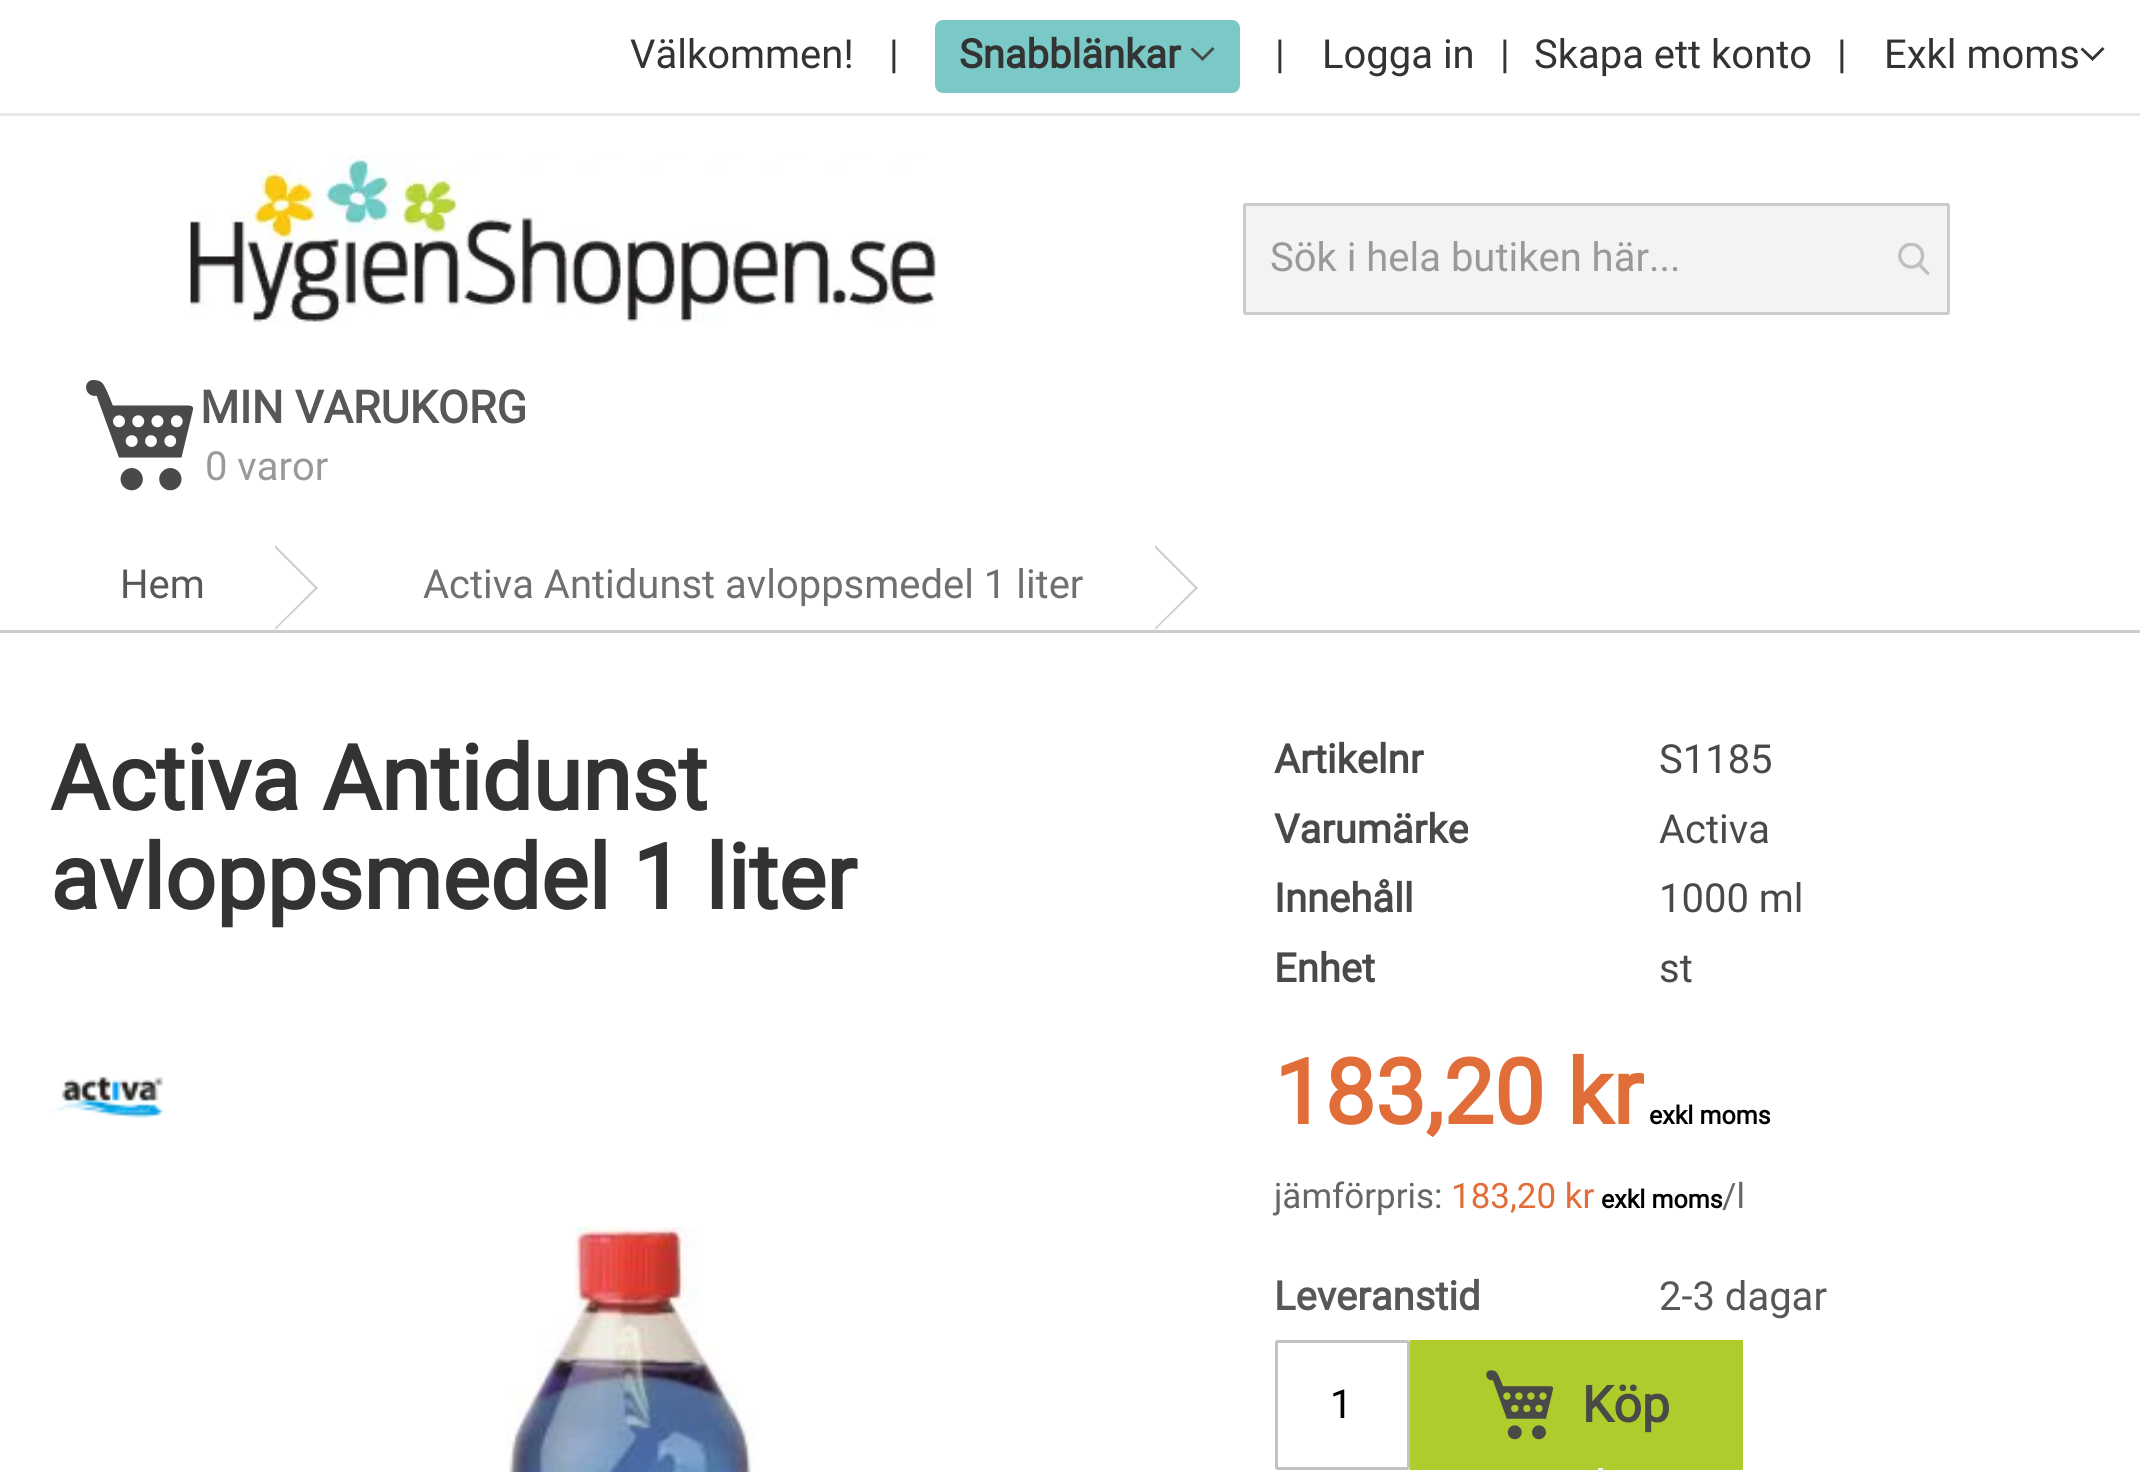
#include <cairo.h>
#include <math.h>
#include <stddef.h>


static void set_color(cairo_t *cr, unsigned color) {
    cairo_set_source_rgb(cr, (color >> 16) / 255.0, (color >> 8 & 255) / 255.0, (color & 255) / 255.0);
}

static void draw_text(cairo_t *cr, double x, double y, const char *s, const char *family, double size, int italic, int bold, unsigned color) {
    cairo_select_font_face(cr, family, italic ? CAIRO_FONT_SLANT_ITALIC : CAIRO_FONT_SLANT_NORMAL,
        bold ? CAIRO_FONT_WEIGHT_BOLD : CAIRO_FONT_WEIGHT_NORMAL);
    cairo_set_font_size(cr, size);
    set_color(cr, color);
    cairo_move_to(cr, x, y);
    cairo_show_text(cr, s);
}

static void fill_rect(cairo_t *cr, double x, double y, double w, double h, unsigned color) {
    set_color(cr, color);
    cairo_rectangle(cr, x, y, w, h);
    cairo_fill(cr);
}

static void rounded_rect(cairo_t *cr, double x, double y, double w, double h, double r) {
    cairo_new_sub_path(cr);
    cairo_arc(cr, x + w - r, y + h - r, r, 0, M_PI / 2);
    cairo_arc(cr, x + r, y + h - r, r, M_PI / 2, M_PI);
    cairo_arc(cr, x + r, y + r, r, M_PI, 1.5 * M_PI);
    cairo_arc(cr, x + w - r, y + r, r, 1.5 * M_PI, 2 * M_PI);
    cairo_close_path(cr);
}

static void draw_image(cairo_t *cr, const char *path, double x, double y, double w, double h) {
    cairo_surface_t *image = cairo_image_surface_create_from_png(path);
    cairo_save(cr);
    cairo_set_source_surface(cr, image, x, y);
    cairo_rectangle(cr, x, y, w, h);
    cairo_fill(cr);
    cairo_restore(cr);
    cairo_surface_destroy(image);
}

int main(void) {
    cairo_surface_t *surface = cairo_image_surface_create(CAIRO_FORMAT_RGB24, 2140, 1472);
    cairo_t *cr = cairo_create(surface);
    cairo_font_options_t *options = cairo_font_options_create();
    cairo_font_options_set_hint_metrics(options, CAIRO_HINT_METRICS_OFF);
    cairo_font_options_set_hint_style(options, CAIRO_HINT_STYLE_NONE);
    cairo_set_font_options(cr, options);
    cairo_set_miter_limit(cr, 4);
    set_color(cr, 0xFFFFFF);
    cairo_paint(cr);
    fill_rect(cr, 0, 113, 2140, 3, 0xE8E8E8);
    draw_text(cr, 630, 68, "Välkommen!", "Roboto", 40, 0, 0, 0x333333);
    draw_text(cr, 889, 68, "|", "Roboto", 40, 0, 0, 0x333333);
    set_color(cr, 0x7BC9C7);
    rounded_rect(cr, 935, 20, 305, 73, 8);
    cairo_fill(cr);
    draw_text(cr, 959, 68, "Snabblänkar", "Roboto", 40, 0, 1, 0x333333);
    set_color(cr, 0x494948);
    cairo_new_path(cr);
    cairo_move_to(cr, 1202.5, 57);
    cairo_line_to(cr, 1192.5, 47.5);
    cairo_line_to(cr, 1190.5, 49.5);
    cairo_line_to(cr, 1202.5, 61);
    cairo_line_to(cr, 1214.5, 49);
    cairo_line_to(cr, 1212.5, 47);
    cairo_close_path(cr);
    cairo_fill(cr);
    draw_text(cr, 1275, 68, "|", "Roboto", 40, 0, 0, 0x333333);
    draw_text(cr, 1322, 68, "Logga in", "Roboto", 40, 0, 0, 0x333333);
    draw_text(cr, 1500, 68, "|", "Roboto", 40, 0, 0, 0x333333);
    draw_text(cr, 1534, 68, "Skapa ett konto", "Roboto", 40, 0, 0, 0x333333);
    draw_text(cr, 1837, 68, "|", "Roboto", 40, 0, 0, 0x333333);
    draw_text(cr, 1884, 68, "Exkl moms", "Roboto", 40, 0, 0, 0x333333);
    cairo_new_path(cr);
    cairo_move_to(cr, 2092.5, 57);
    cairo_line_to(cr, 2082.5, 47.5);
    cairo_line_to(cr, 2080.5, 49.5);
    cairo_line_to(cr, 2092.5, 61);
    cairo_line_to(cr, 2104.5, 49);
    cairo_line_to(cr, 2102.5, 47);
    cairo_close_path(cr);
    cairo_fill(cr);
    draw_image(cr, "assets/img1.png", 190, 155, 746, 169);
    set_color(cr, 0xF3F3F3);
    rounded_rect(cr, 1244.5, 204.5, 704, 109, 1);
    cairo_fill_preserve(cr);
    set_color(cr, 0xCCCCCC);
    cairo_set_line_width(cr, 3);
    cairo_stroke(cr);
    draw_text(cr, 1270, 271, "Sök i hela butiken här...", "Roboto", 40, 0, 0, 0x999999);
    draw_image(cr, "assets/img2.png", 1898, 243, 32, 32);
    draw_image(cr, "assets/img3.png", 86, 379, 108, 112);
    draw_text(cr, 200, 423, "MIN VARUKORG", "Roboto", 45, 0, 1, 0x575757);
    draw_text(cr, 205, 480, "0 varor", "Roboto", 40, 0, 0, 0x999999);
    fill_rect(cr, 0, 630, 2140, 3, 0xCCCCCC);
    cairo_new_path(cr);
    cairo_move_to(cr, 275, 630);
    cairo_line_to(cr, 275, 545);
    cairo_line_to(cr, 318, 588);
    cairo_close_path(cr);
    cairo_fill(cr);
    draw_text(cr, 120, 598, "Hem", "Roboto", 40, 0, 0, 0x575757);
    set_color(cr, 0xFFFFFF);
    cairo_new_path(cr);
    cairo_move_to(cr, 275, 628);
    cairo_line_to(cr, 275, 548);
    cairo_line_to(cr, 315, 588);
    cairo_close_path(cr);
    cairo_fill(cr);
    set_color(cr, 0xCCCCCC);
    cairo_new_path(cr);
    cairo_move_to(cr, 1155, 630);
    cairo_line_to(cr, 1155, 545);
    cairo_line_to(cr, 1198, 588);
    cairo_close_path(cr);
    cairo_fill(cr);
    draw_text(cr, 423, 598, "Activa Antidunst avloppsmedel 1 liter", "Roboto", 40, 0, 0, 0x707070);
    set_color(cr, 0xFFFFFF);
    cairo_new_path(cr);
    cairo_move_to(cr, 1155, 628);
    cairo_line_to(cr, 1155, 548);
    cairo_line_to(cr, 1195, 588);
    cairo_close_path(cr);
    cairo_fill(cr);
    draw_text(cr, 50, 810, "Activa Antidunst", "Roboto", 90, 0, 1, 0x333333);
    draw_text(cr, 50, 909, "avloppsmedel 1 liter", "Roboto", 90, 0, 1, 0x333333);
    draw_image(cr, "assets/img4.png", 50, 1076, 113, 43);
    draw_text(cr, 1274, 773, "Artikelnr", "Roboto", 40, 0, 1, 0x494948);
    draw_text(cr, 1659, 773, "S1185", "Roboto", 40, 0, 0, 0x494948);
    draw_text(cr, 1274, 843, "Varumärke", "Roboto", 40, 0, 1, 0x494948);
    draw_text(cr, 1659, 843, "Activa", "Roboto", 40, 0, 0, 0x494948);
    draw_text(cr, 1274, 912, "Innehåll", "Roboto", 40, 0, 1, 0x494948);
    draw_text(cr, 1659, 912, "1000 ml", "Roboto", 40, 0, 0, 0x494948);
    draw_text(cr, 1274, 982, "Enhet", "Roboto", 40, 0, 1, 0x494948);
    draw_text(cr, 1659, 982, "st", "Roboto", 40, 0, 0, 0x494948);
    draw_text(cr, 1274, 1124, "183,20 kr", "Roboto", 90, 0, 1, 0xE16E38);
    draw_text(cr, 1649, 1124, "exkl moms", "Roboto", 25, 0, 1, 0x000000);
    draw_text(cr, 1274, 1208, "jämförpris:", "Roboto", 35, 0, 0, 0x666666);
    draw_text(cr, 1451, 1208, "183,20 kr", "Roboto", 35, 0, 0, 0xE16E38);
    draw_text(cr, 1601, 1208, "exkl moms", "Roboto", 25, 0, 1, 0x000000);
    draw_text(cr, 1722, 1208, "/l", "Roboto", 35, 0, 0, 0x666666);
    draw_text(cr, 1274, 1310, "Leveranstid", "Roboto", 40, 0, 1, 0x575757);
    draw_text(cr, 1659, 1310, "2-3 dagar", "Roboto", 40, 0, 0, 0x575757);
    rounded_rect(cr, 1276.5, 1341.5, 132, 127, 1);
    set_color(cr, 0xC2C2C2);
    cairo_stroke(cr);
    draw_text(cr, 1330, 1418, "1", "Roboto", 40, 0, 0, 0x000000);
    fill_rect(cr, 1410, 1340, 333, 130, 0xAECC2C);
    draw_image(cr, "assets/img5.png", 1486, 1370, 68, 70);
    draw_text(cr, 1582, 1422, "Köp", "Roboto", 50, 0, 1, 0x494948);
    draw_image(cr, "assets/img6.png", 505, 1227, 253, 245);
    fill_rect(cr, 1598, 1468, 5, 4, 0xF5F5F5);
    cairo_surface_write_to_png(surface, "output.png");
    cairo_font_options_destroy(options);
    cairo_destroy(cr);
    cairo_surface_destroy(surface);
    return 0;
}
